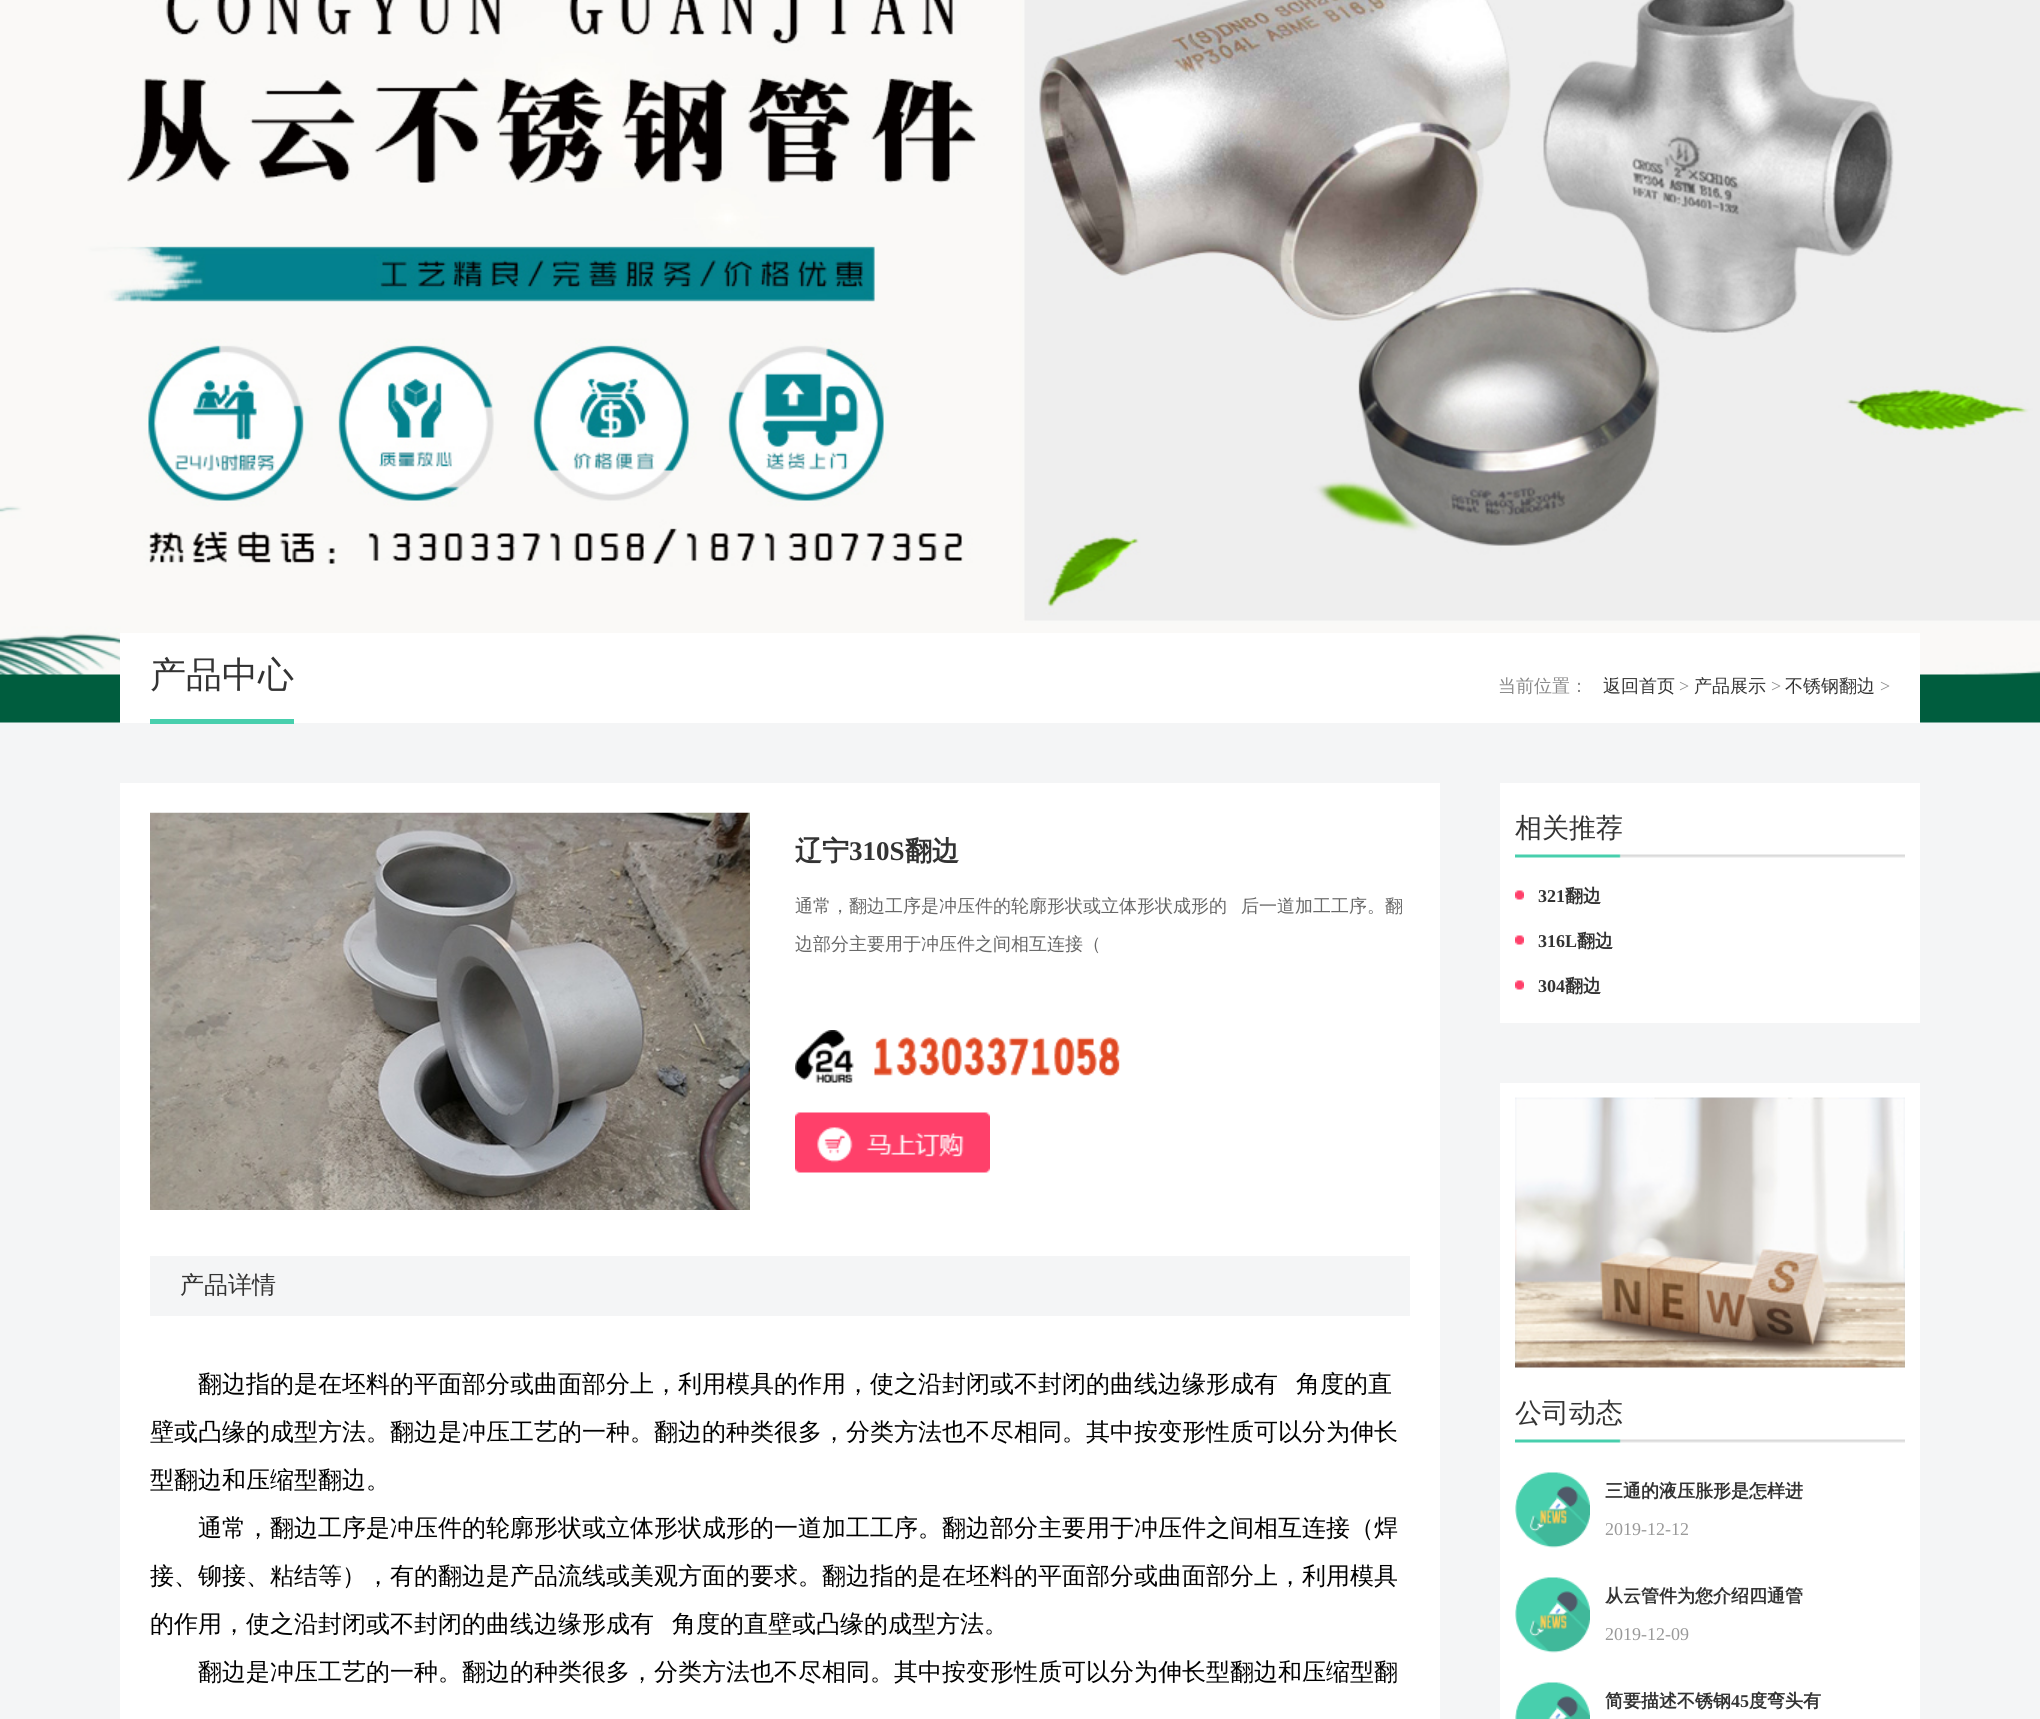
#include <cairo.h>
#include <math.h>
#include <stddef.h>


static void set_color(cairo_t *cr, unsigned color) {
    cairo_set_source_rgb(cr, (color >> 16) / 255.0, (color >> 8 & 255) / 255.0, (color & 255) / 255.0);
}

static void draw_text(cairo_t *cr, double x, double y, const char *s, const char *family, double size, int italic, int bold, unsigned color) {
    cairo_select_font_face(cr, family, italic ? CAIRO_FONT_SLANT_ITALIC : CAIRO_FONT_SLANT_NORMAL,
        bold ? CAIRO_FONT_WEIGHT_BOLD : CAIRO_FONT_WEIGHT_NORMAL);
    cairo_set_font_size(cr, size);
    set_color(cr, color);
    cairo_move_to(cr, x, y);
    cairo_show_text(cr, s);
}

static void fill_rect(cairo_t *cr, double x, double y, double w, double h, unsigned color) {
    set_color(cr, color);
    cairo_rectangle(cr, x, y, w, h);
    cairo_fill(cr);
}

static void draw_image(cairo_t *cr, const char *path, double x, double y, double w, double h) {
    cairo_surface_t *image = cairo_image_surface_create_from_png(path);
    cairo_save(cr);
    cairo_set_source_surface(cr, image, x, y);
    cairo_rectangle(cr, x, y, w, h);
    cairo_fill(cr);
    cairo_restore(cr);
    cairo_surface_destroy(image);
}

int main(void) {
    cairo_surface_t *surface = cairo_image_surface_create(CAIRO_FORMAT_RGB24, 2040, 1719);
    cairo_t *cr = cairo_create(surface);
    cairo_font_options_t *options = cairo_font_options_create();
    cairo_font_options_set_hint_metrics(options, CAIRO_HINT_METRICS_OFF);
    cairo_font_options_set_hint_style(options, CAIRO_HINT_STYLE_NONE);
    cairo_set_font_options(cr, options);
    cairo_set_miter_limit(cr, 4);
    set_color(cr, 0xF4F5F6);
    cairo_paint(cr);
    draw_image(cr, "assets/img1.png", 0, 0, 2040, 723);
    fill_rect(cr, 120, 633, 1800, 90, 0xFFFFFF);
    fill_rect(cr, 150, 719, 144, 5, 0x48CFAD);
    draw_text(cr, 150, 687, "产品中心", "WenQuanYi Zen Hei Medium", 36, 0, 0, 0x333333);
    draw_text(cr, 1498, 692, "当前位置：", "WenQuanYi Zen Hei Medium", 18, 0, 0, 0x888888);
    draw_text(cr, 1603, 692, "返回首页", "WenQuanYi Zen Hei Medium", 18, 0, 0, 0x333333);
    draw_text(cr, 1679, 692, ">", "Liberation Serif", 18, 0, 0, 0x888888);
    draw_text(cr, 1694, 692, "产品展示", "WenQuanYi Zen Hei Medium", 18, 0, 0, 0x333333);
    draw_text(cr, 1771, 692, ">", "Liberation Serif", 18, 0, 0, 0x888888);
    draw_text(cr, 1785, 692, "不锈钢翻边", "WenQuanYi Zen Hei Medium", 18, 0, 0, 0x333333);
    draw_text(cr, 1880, 692, ">", "Liberation Serif", 18, 0, 0, 0x888888);
    fill_rect(cr, 120, 783, 1320, 936, 0xFFFFFF);
    draw_image(cr, "assets/img2.png", 150, 812, 600, 398);
    draw_text(cr, 795, 860, "辽宁", "WenQuanYi Zen Hei", 27, 0, 1, 0x333333);
    draw_text(cr, 849, 860, "310S", "Liberation Serif", 27, 0, 1, 0x333333);
    draw_text(cr, 905, 860, "翻边", "WenQuanYi Zen Hei", 27, 0, 1, 0x333333);
    draw_text(cr, 795, 912, "通常，翻边工序是冲压件的轮廓形状或立体形状成形的", "WenQuanYi Zen Hei Medium", 18, 0, 0, 0x666666);
    draw_text(cr, 1241, 912, "后一道加工工序。翻", "WenQuanYi Zen Hei Medium", 18, 0, 0, 0x666666);
    draw_text(cr, 795, 950, "边部分主要用于冲压件之间相互连接（", "WenQuanYi Zen Hei Medium", 18, 0, 0, 0x666666);
    draw_image(cr, "assets/img3.png", 795, 1030, 325, 53);
    draw_image(cr, "assets/img4.png", 795, 1112, 195, 61);
    fill_rect(cr, 150, 1256, 1260, 60, 0xF4F5F6);
    draw_text(cr, 180, 1293, "产品详情", "WenQuanYi Zen Hei Medium", 24, 0, 0, 0x333333);
    draw_text(cr, 198, 1392, "翻边指的是在坯料的平面部分或曲面部分上，利用模具的作用，使之沿封闭或不封闭的曲线边缘形成有", "WenQuanYi Zen Hei Medium", 24, 0, 0, 0x000000);
    draw_text(cr, 1296, 1392, "角度的直", "WenQuanYi Zen Hei Medium", 24, 0, 0, 0x000000);
    draw_text(cr, 150, 1440, "壁或凸缘的成型方法。翻边是冲压工艺的一种。翻边的种类很多，分类方法也不尽相同。其中按变形性质可以分为伸长", "WenQuanYi Zen Hei Medium", 24, 0, 0, 0x000000);
    draw_text(cr, 150, 1488, "型翻边和压缩型翻边。", "WenQuanYi Zen Hei Medium", 24, 0, 0, 0x000000);
    draw_text(cr, 198, 1536, "通常，翻边工序是冲压件的轮廓形状或立体形状成形的一道加工工序。翻边部分主要用于冲压件之间相互连接（焊", "WenQuanYi Zen Hei Medium", 24, 0, 0, 0x000000);
    draw_text(cr, 150, 1584, "接、铆接、粘结等），有的翻边是产品流线或美观方面的要求。翻边指的是在坯料的平面部分或曲面部分上，利用模具", "WenQuanYi Zen Hei Medium", 24, 0, 0, 0x000000);
    draw_text(cr, 150, 1632, "的作用，使之沿封闭或不封闭的曲线边缘形成有", "WenQuanYi Zen Hei Medium", 24, 0, 0, 0x000000);
    draw_text(cr, 672, 1632, "角度的直壁或凸缘的成型方法。", "WenQuanYi Zen Hei Medium", 24, 0, 0, 0x000000);
    draw_text(cr, 198, 1680, "翻边是冲压工艺的一种。翻边的种类很多，分类方法也不尽相同。其中按变形性质可以分为伸长型翻边和压缩型翻", "WenQuanYi Zen Hei Medium", 24, 0, 0, 0x000000);
    fill_rect(cr, 1500, 783, 420, 240, 0xFFFFFF);
    draw_image(cr, "assets/img5.png", 1515, 854, 390, 4);
    draw_text(cr, 1515, 837, "相关推荐", "WenQuanYi Zen Hei Medium", 27, 0, 0, 0x333333);
    draw_image(cr, "assets/img6.png", 1515, 890, 9, 10);
    draw_text(cr, 1538, 902, "321", "Liberation Serif", 18, 0, 1, 0x333333);
    draw_text(cr, 1565, 902, "翻边", "WenQuanYi Zen Hei", 18, 0, 1, 0x333333);
    draw_image(cr, "assets/img6.png", 1515, 935, 9, 10);
    draw_text(cr, 1538, 947, "316L", "Liberation Serif", 18, 0, 1, 0x333333);
    draw_text(cr, 1577, 947, "翻边", "WenQuanYi Zen Hei", 18, 0, 1, 0x333333);
    draw_image(cr, "assets/img6.png", 1515, 980, 9, 10);
    draw_text(cr, 1538, 992, "304", "Liberation Serif", 18, 0, 1, 0x333333);
    draw_text(cr, 1565, 992, "翻边", "WenQuanYi Zen Hei", 18, 0, 1, 0x333333);
    fill_rect(cr, 1500, 1083, 420, 636, 0xFFFFFF);
    draw_image(cr, "assets/img7.png", 1515, 1097, 390, 271);
    draw_image(cr, "assets/img5.png", 1515, 1439, 390, 4);
    draw_text(cr, 1515, 1422, "公司动态", "WenQuanYi Zen Hei Medium", 27, 0, 0, 0x333333);
    draw_image(cr, "assets/img8.png", 1515, 1472, 75, 76);
    draw_text(cr, 1605, 1497, "三通的液压胀形是怎样进", "WenQuanYi Zen Hei", 18, 0, 1, 0x333333);
    draw_text(cr, 1605, 1535, "2019-12-12", "Liberation Serif", 18, 0, 0, 0x999999);
    draw_image(cr, "assets/img8.png", 1515, 1577, 75, 76);
    draw_text(cr, 1605, 1602, "从云管件为您介绍四通管", "WenQuanYi Zen Hei", 18, 0, 1, 0x333333);
    draw_text(cr, 1605, 1640, "2019-12-09", "Liberation Serif", 18, 0, 0, 0x999999);
    draw_image(cr, "assets/img9.png", 1515, 1682, 75, 37);
    draw_text(cr, 1605, 1707, "简要描述不锈钢", "WenQuanYi Zen Hei", 18, 0, 1, 0x333333);
    draw_text(cr, 1731, 1707, "45", "Liberation Serif", 18, 0, 1, 0x333333);
    draw_text(cr, 1749, 1707, "度弯头有", "WenQuanYi Zen Hei", 18, 0, 1, 0x333333);
    cairo_surface_write_to_png(surface, "output.png");
    cairo_font_options_destroy(options);
    cairo_destroy(cr);
    cairo_surface_destroy(surface);
    return 0;
}
